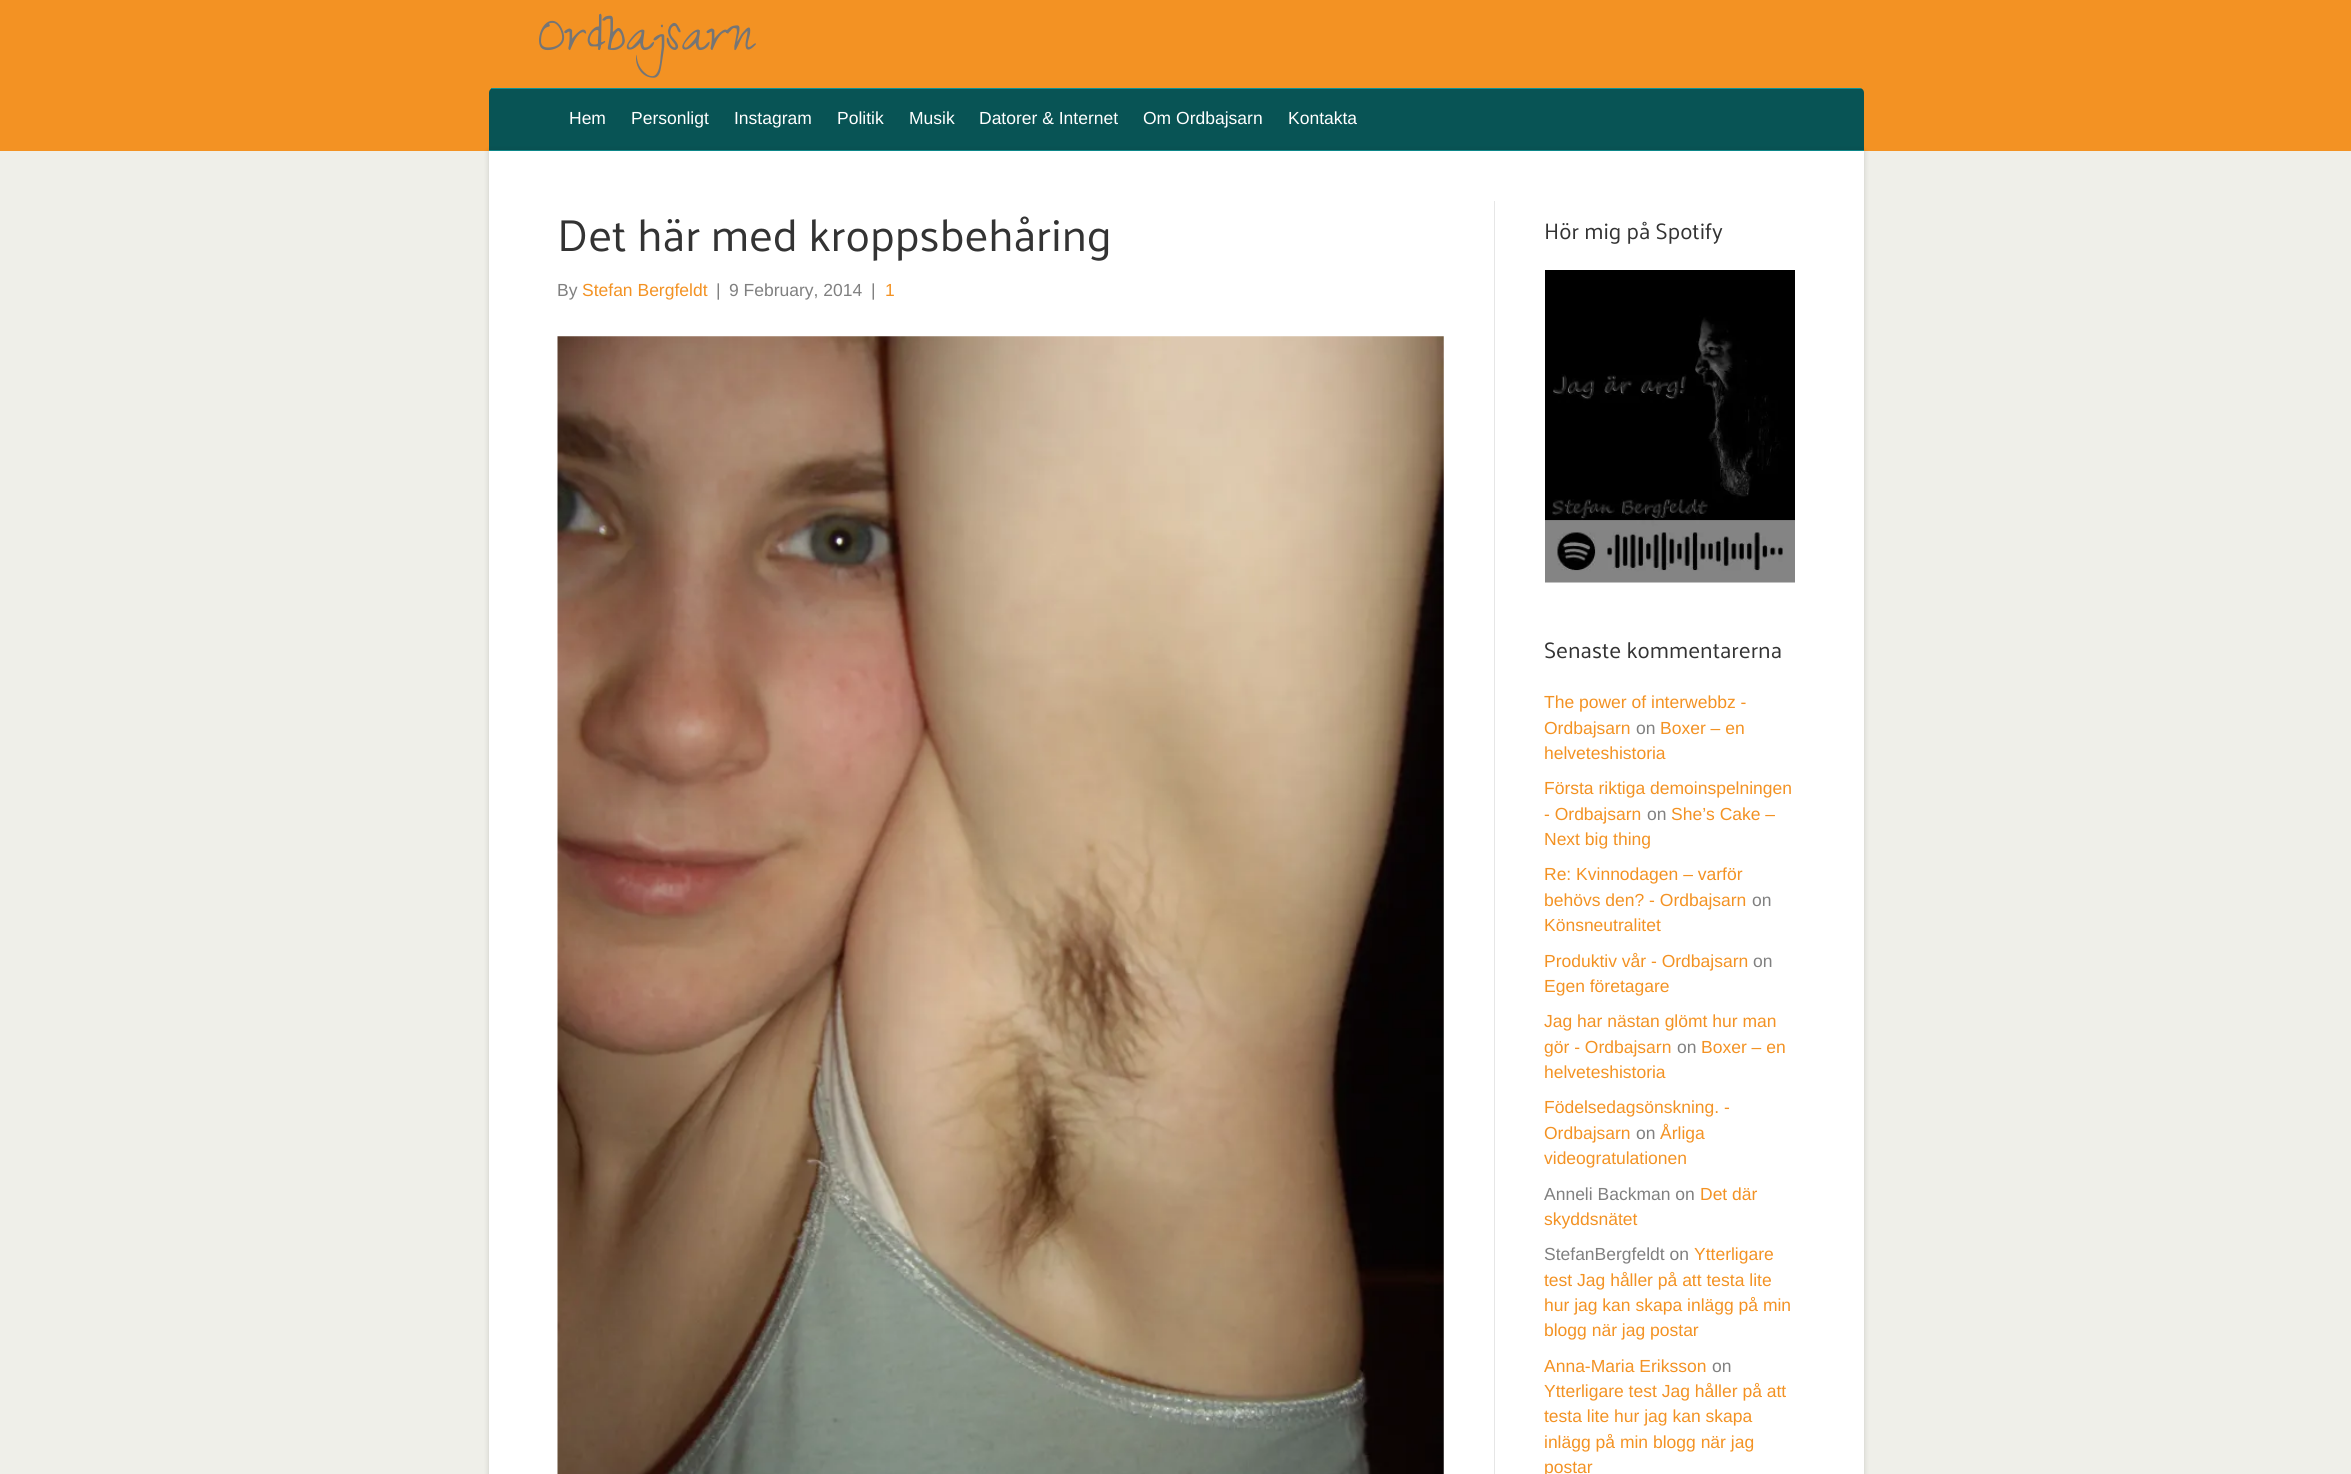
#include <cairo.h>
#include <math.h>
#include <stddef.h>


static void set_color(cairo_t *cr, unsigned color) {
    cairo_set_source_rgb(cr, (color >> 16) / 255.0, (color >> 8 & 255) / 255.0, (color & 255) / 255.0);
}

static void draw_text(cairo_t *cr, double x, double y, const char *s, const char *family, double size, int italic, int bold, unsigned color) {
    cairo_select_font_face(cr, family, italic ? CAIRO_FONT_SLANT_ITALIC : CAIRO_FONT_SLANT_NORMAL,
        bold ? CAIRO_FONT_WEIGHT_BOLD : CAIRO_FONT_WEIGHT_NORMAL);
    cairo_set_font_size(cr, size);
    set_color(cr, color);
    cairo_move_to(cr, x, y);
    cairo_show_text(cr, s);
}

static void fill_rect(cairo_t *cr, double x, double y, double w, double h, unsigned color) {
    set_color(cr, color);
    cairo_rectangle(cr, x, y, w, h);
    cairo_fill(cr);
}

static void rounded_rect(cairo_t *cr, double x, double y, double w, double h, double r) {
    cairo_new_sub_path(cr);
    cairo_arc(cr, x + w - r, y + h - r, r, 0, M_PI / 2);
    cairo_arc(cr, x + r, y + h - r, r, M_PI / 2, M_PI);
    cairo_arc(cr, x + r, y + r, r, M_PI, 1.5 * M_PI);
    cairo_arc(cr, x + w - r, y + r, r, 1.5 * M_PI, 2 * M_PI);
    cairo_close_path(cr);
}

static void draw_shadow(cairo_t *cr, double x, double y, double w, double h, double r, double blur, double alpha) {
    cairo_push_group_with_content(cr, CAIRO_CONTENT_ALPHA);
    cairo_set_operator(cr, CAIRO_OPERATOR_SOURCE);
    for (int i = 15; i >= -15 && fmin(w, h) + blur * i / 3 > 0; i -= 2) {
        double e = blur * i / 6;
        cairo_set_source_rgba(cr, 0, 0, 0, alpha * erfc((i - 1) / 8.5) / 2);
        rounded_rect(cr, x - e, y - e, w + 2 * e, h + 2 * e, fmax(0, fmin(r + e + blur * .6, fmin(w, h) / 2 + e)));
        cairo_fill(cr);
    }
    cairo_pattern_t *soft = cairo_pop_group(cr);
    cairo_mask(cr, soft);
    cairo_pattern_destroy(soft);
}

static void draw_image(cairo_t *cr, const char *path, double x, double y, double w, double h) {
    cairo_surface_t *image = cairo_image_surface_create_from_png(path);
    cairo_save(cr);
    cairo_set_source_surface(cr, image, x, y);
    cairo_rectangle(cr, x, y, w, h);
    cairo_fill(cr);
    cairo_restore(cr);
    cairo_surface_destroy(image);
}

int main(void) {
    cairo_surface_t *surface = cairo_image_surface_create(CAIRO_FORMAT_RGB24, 2351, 1474);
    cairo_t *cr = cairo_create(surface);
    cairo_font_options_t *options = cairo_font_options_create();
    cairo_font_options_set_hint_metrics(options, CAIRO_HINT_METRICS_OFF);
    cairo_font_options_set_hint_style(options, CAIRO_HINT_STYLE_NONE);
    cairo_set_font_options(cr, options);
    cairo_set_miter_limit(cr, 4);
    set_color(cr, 0xEFEFE9);
    cairo_paint(cr);
    fill_rect(cr, 0, 0, 2351, 151, 0xF39223);
    draw_text(cr, 538, 50, "Ordbajsarn", "Zeyada", 60, 0, 0, 0x757575);
    set_color(cr, 0x085455);
    cairo_new_path(cr);
    cairo_move_to(cr, 494, 88);
    cairo_line_to(cr, 1859, 88);
    cairo_curve_to(cr, 1862, 88, 1864, 90, 1864, 93);
    cairo_line_to(cr, 1864, 151);
    cairo_line_to(cr, 489, 151);
    cairo_line_to(cr, 489, 93);
    cairo_curve_to(cr, 489, 90, 491, 88, 494, 88);
    cairo_close_path(cr);
    cairo_fill(cr);
    fill_rect(cr, 491, 88, 1370, 1, 0x0E9092);
    fill_rect(cr, 489, 150, 1375, 1, 0x0E9092);
    draw_text(cr, 569, 124, "Hem", "Liberation Sans", 17.5, 0, 0, 0xFFFFFF);
    draw_text(cr, 631, 124, "Personligt", "Liberation Sans", 17.5, 0, 0, 0xFFFFFF);
    draw_text(cr, 734, 124, "Instagram", "Liberation Sans", 17.5, 0, 0, 0xFFFFFF);
    draw_text(cr, 837, 124, "Politik", "Liberation Sans", 17.5, 0, 0, 0xFFFFFF);
    draw_text(cr, 909, 124, "Musik", "Liberation Sans", 17.5, 0, 0, 0xFFFFFF);
    draw_text(cr, 979, 124, "Datorer & Internet", "Liberation Sans", 17.5, 0, 0, 0xFFFFFF);
    draw_text(cr, 1143, 124, "Om Ordbajsarn", "Liberation Sans", 17.5, 0, 0, 0xFFFFFF);
    draw_text(cr, 1288, 124, "Kontakta", "Liberation Sans", 17.5, 0, 0, 0xFFFFFF);
    set_color(cr, 0x000000);
    draw_shadow(cr, 489, 151, 1375, 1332, 0, 3, 0.15);
    fill_rect(cr, 489, 151, 1375, 1323, 0xFFFFFF);
    fill_rect(cr, 1494, 201, 1, 1273, 0xE6E6E6);
    draw_text(cr, 557, 251, "Det här med kroppsbehåring", "Palanquin", 45, 0, 0, 0x333333);
    draw_text(cr, 557, 296, "By", "Liberation Sans", 17.5, 0, 0, 0x808080);
    draw_text(cr, 582, 296, "Stefan Bergfeldt", "Liberation Sans", 17.5, 0, 0, 0xF39223);
    draw_text(cr, 716, 296, "|", "Liberation Sans", 17.5, 0, 0, 0x808080);
    draw_text(cr, 729, 296, "9 February, 2014", "Liberation Sans", 17.5, 0, 0, 0x808080);
    draw_text(cr, 871, 296, "|", "Liberation Sans", 17.5, 0, 0, 0x808080);
    draw_text(cr, 885, 296, "1", "Liberation Sans", 17.5, 0, 0, 0xF39223);
    draw_image(cr, "assets/img1.png", 557, 336, 887, 1138);
    draw_text(cr, 1544, 239, "Hör mig på Spotify", "Palanquin", 22.5, 0, 0, 0x333333);
    draw_image(cr, "assets/img2.png", 1545, 270, 250, 313);
    draw_text(cr, 1544, 658, "Senaste kommentarerna", "Palanquin", 22.5, 0, 0, 0x333333);
    draw_text(cr, 1544, 708, "The power of interwebbz -", "Liberation Sans", 17.5, 0, 0, 0xF39223);
    draw_text(cr, 1544, 734, "Ordbajsarn", "Liberation Sans", 17.5, 0, 0, 0xF39223);
    draw_text(cr, 1636, 734, "on", "Liberation Sans", 17.5, 0, 0, 0x808080);
    draw_text(cr, 1660, 734, "Boxer – en", "Liberation Sans", 17.5, 0, 0, 0xF39223);
    draw_text(cr, 1544, 759, "helveteshistoria", "Liberation Sans", 17.5, 0, 0, 0xF39223);
    draw_text(cr, 1544, 794, "Första riktiga demoinspelningen", "Liberation Sans", 17.5, 0, 0, 0xF39223);
    draw_text(cr, 1544, 820, "- Ordbajsarn", "Liberation Sans", 17.5, 0, 0, 0xF39223);
    draw_text(cr, 1647, 820, "on", "Liberation Sans", 17.5, 0, 0, 0x808080);
    draw_text(cr, 1671, 820, "She’s Cake –", "Liberation Sans", 17.5, 0, 0, 0xF39223);
    draw_text(cr, 1544, 845, "Next big thing", "Liberation Sans", 17.5, 0, 0, 0xF39223);
    draw_text(cr, 1544, 880, "Re: Kvinnodagen – varför", "Liberation Sans", 17.5, 0, 0, 0xF39223);
    draw_text(cr, 1544, 906, "behövs den? - Ordbajsarn", "Liberation Sans", 17.5, 0, 0, 0xF39223);
    draw_text(cr, 1752, 906, "on", "Liberation Sans", 17.5, 0, 0, 0x808080);
    draw_text(cr, 1544, 931, "Könsneutralitet", "Liberation Sans", 17.5, 0, 0, 0xF39223);
    draw_text(cr, 1544, 967, "Produktiv vår - Ordbajsarn", "Liberation Sans", 17.5, 0, 0, 0xF39223);
    draw_text(cr, 1753, 967, "on", "Liberation Sans", 17.5, 0, 0, 0x808080);
    draw_text(cr, 1544, 992, "Egen företagare", "Liberation Sans", 17.5, 0, 0, 0xF39223);
    draw_text(cr, 1544, 1027, "Jag har nästan glömt hur man", "Liberation Sans", 17.5, 0, 0, 0xF39223);
    draw_text(cr, 1544, 1053, "gör - Ordbajsarn", "Liberation Sans", 17.5, 0, 0, 0xF39223);
    draw_text(cr, 1677, 1053, "on", "Liberation Sans", 17.5, 0, 0, 0x808080);
    draw_text(cr, 1701, 1053, "Boxer – en", "Liberation Sans", 17.5, 0, 0, 0xF39223);
    draw_text(cr, 1544, 1078, "helveteshistoria", "Liberation Sans", 17.5, 0, 0, 0xF39223);
    draw_text(cr, 1544, 1113, "Födelsedagsönskning. -", "Liberation Sans", 17.5, 0, 0, 0xF39223);
    draw_text(cr, 1544, 1139, "Ordbajsarn", "Liberation Sans", 17.5, 0, 0, 0xF39223);
    draw_text(cr, 1636, 1139, "on", "Liberation Sans", 17.5, 0, 0, 0x808080);
    draw_text(cr, 1660, 1139, "Årliga", "Liberation Sans", 17.5, 0, 0, 0xF39223);
    draw_text(cr, 1544, 1164, "videogratulationen", "Liberation Sans", 17.5, 0, 0, 0xF39223);
    draw_text(cr, 1544, 1200, "Anneli Backman on", "Liberation Sans", 17.5, 0, 0, 0x808080);
    draw_text(cr, 1700, 1200, "Det där", "Liberation Sans", 17.5, 0, 0, 0xF39223);
    draw_text(cr, 1544, 1225, "skyddsnätet", "Liberation Sans", 17.5, 0, 0, 0xF39223);
    draw_text(cr, 1544, 1260, "StefanBergfeldt on", "Liberation Sans", 17.5, 0, 0, 0x808080);
    draw_text(cr, 1694, 1260, "Ytterligare", "Liberation Sans", 17.5, 0, 0, 0xF39223);
    draw_text(cr, 1544, 1286, "test Jag håller på att testa lite", "Liberation Sans", 17.5, 0, 0, 0xF39223);
    draw_text(cr, 1544, 1311, "hur jag kan skapa inlägg på min", "Liberation Sans", 17.5, 0, 0, 0xF39223);
    draw_text(cr, 1544, 1336, "blogg när jag postar", "Liberation Sans", 17.5, 0, 0, 0xF39223);
    draw_text(cr, 1544, 1372, "Anna-Maria Eriksson", "Liberation Sans", 17.5, 0, 0, 0xF39223);
    draw_text(cr, 1712, 1372, "on", "Liberation Sans", 17.5, 0, 0, 0x808080);
    draw_text(cr, 1544, 1397, "Ytterligare test Jag håller på att", "Liberation Sans", 17.5, 0, 0, 0xF39223);
    draw_text(cr, 1544, 1422, "testa lite hur jag kan skapa", "Liberation Sans", 17.5, 0, 0, 0xF39223);
    draw_text(cr, 1544, 1448, "inlägg på min blogg när jag", "Liberation Sans", 17.5, 0, 0, 0xF39223);
    draw_text(cr, 1544, 1473, "postar", "Liberation Sans", 17.5, 0, 0, 0xF39223);
    cairo_surface_write_to_png(surface, "output.png");
    cairo_font_options_destroy(options);
    cairo_destroy(cr);
    cairo_surface_destroy(surface);
    return 0;
}
